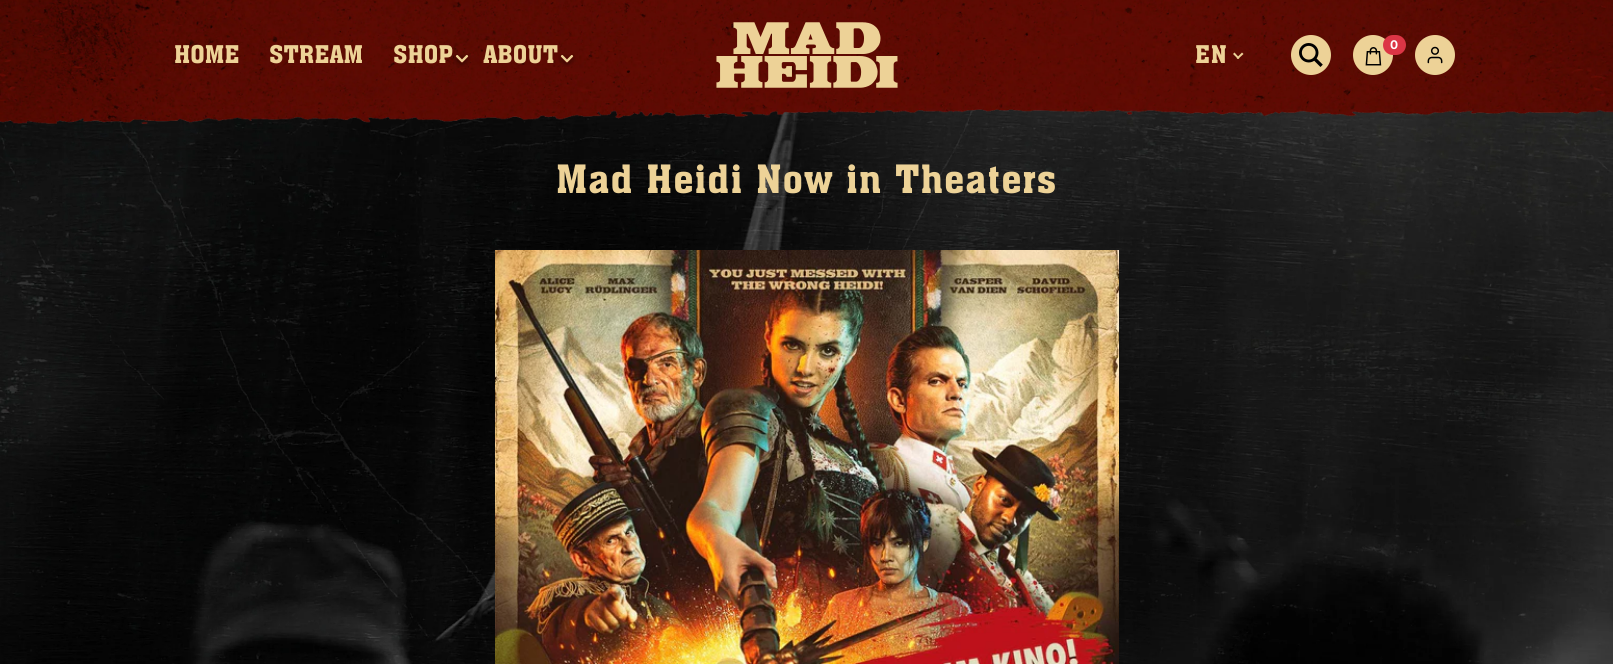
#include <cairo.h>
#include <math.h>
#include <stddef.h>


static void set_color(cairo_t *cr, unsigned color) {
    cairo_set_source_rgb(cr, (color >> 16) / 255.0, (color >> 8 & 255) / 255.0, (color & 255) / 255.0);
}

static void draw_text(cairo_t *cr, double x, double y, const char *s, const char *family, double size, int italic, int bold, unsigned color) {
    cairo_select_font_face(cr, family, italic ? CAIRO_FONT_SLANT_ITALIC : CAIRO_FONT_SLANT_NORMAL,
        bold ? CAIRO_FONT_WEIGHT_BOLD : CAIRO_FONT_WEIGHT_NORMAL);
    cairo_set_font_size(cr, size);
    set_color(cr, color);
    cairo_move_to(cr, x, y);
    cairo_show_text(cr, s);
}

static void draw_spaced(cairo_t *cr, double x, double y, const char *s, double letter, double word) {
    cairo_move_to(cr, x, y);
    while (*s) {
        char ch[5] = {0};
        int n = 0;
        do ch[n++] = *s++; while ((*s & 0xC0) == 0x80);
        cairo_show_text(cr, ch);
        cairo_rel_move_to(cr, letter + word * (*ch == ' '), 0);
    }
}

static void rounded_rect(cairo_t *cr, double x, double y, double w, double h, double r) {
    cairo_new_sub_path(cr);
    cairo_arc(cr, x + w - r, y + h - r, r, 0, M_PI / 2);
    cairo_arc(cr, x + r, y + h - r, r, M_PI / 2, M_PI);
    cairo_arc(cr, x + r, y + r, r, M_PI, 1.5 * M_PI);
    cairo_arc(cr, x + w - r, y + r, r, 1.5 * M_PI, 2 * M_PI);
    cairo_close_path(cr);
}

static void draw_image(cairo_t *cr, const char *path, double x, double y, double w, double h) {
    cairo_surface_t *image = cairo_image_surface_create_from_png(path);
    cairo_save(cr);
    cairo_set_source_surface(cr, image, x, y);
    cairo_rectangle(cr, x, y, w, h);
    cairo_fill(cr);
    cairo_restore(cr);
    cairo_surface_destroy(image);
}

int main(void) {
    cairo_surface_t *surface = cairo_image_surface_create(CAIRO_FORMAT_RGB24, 1613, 664);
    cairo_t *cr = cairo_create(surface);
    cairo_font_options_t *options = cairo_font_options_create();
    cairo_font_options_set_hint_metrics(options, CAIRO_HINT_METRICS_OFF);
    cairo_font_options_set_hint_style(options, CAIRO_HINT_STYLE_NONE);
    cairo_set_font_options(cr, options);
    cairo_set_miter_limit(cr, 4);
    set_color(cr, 0xFFFFFF);
    cairo_paint(cr);
    draw_image(cr, "assets/img1.png", 0, 99, 1613, 565);
    draw_image(cr, "assets/img2.png", 0, 0, 1613, 124);
    draw_text(cr, 174, 63, "HOME", "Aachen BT", 24, 0, 0, 0xEDD297);
    draw_text(cr, 269, 63, "STREAM", "Aachen BT", 24, 0, 0, 0xEDD297);
    draw_text(cr, 393, 63, "SHOP", "Aachen BT", 24, 0, 0, 0xEDD297);
    draw_image(cr, "assets/img3.png", 453, 54, 18, 13);
    draw_text(cr, 483, 63, "ABOUT", "Aachen BT", 24, 0, 0, 0xEDD297);
    draw_image(cr, "assets/img4.png", 558, 54, 18, 13);
    draw_image(cr, "assets/img5.png", 716, 22, 182, 66);
    draw_spaced(cr, 1195, 63, "EN", 1, 0);
    cairo_new_path(cr);
    cairo_move_to(cr, 1242, 52.5);
    cairo_line_to(cr, 1243.5, 54);
    cairo_line_to(cr, 1238, 59);
    cairo_line_to(cr, 1236.5, 58);
    cairo_close_path(cr);
    cairo_fill(cr);
    cairo_new_path(cr);
    cairo_move_to(cr, 1234.5, 52.5);
    cairo_line_to(cr, 1239.5, 58);
    cairo_line_to(cr, 1238, 59);
    cairo_line_to(cr, 1233, 54);
    cairo_close_path(cr);
    cairo_fill(cr);
    cairo_arc(cr, 1311, 55, 20, 0, 2 * M_PI);
    cairo_fill(cr);
    draw_image(cr, "assets/img6.png", 1299, 43, 24, 24);
    cairo_arc(cr, 1373, 55, 20, 0, 2 * M_PI);
    cairo_fill(cr);
    set_color(cr, 0xDC3545);
    rounded_rect(cr, 1383, 35, 23, 20, 10);
    cairo_fill(cr);
    draw_text(cr, 1390, 49, "0", "Inter", 12, 0, 1, 0xFFFFFF);
    draw_image(cr, "assets/img7.png", 1365, 47, 17, 19);
    set_color(cr, 0xEDD297);
    cairo_arc(cr, 1435, 55, 20, 0, 2 * M_PI);
    cairo_fill(cr);
    draw_image(cr, "assets/img8.png", 1427, 46, 16, 18);
    cairo_select_font_face(cr, "Aachen BT", CAIRO_FONT_SLANT_NORMAL, CAIRO_FONT_WEIGHT_NORMAL);
    cairo_set_font_size(cr, 38.4);
    draw_spaced(cr, 556, 193, "Mad Heidi Now in Theaters", 0.95, 0);
    draw_image(cr, "assets/img9.png", 495, 250, 624, 414);
    cairo_surface_write_to_png(surface, "output.png");
    cairo_font_options_destroy(options);
    cairo_destroy(cr);
    cairo_surface_destroy(surface);
    return 0;
}
